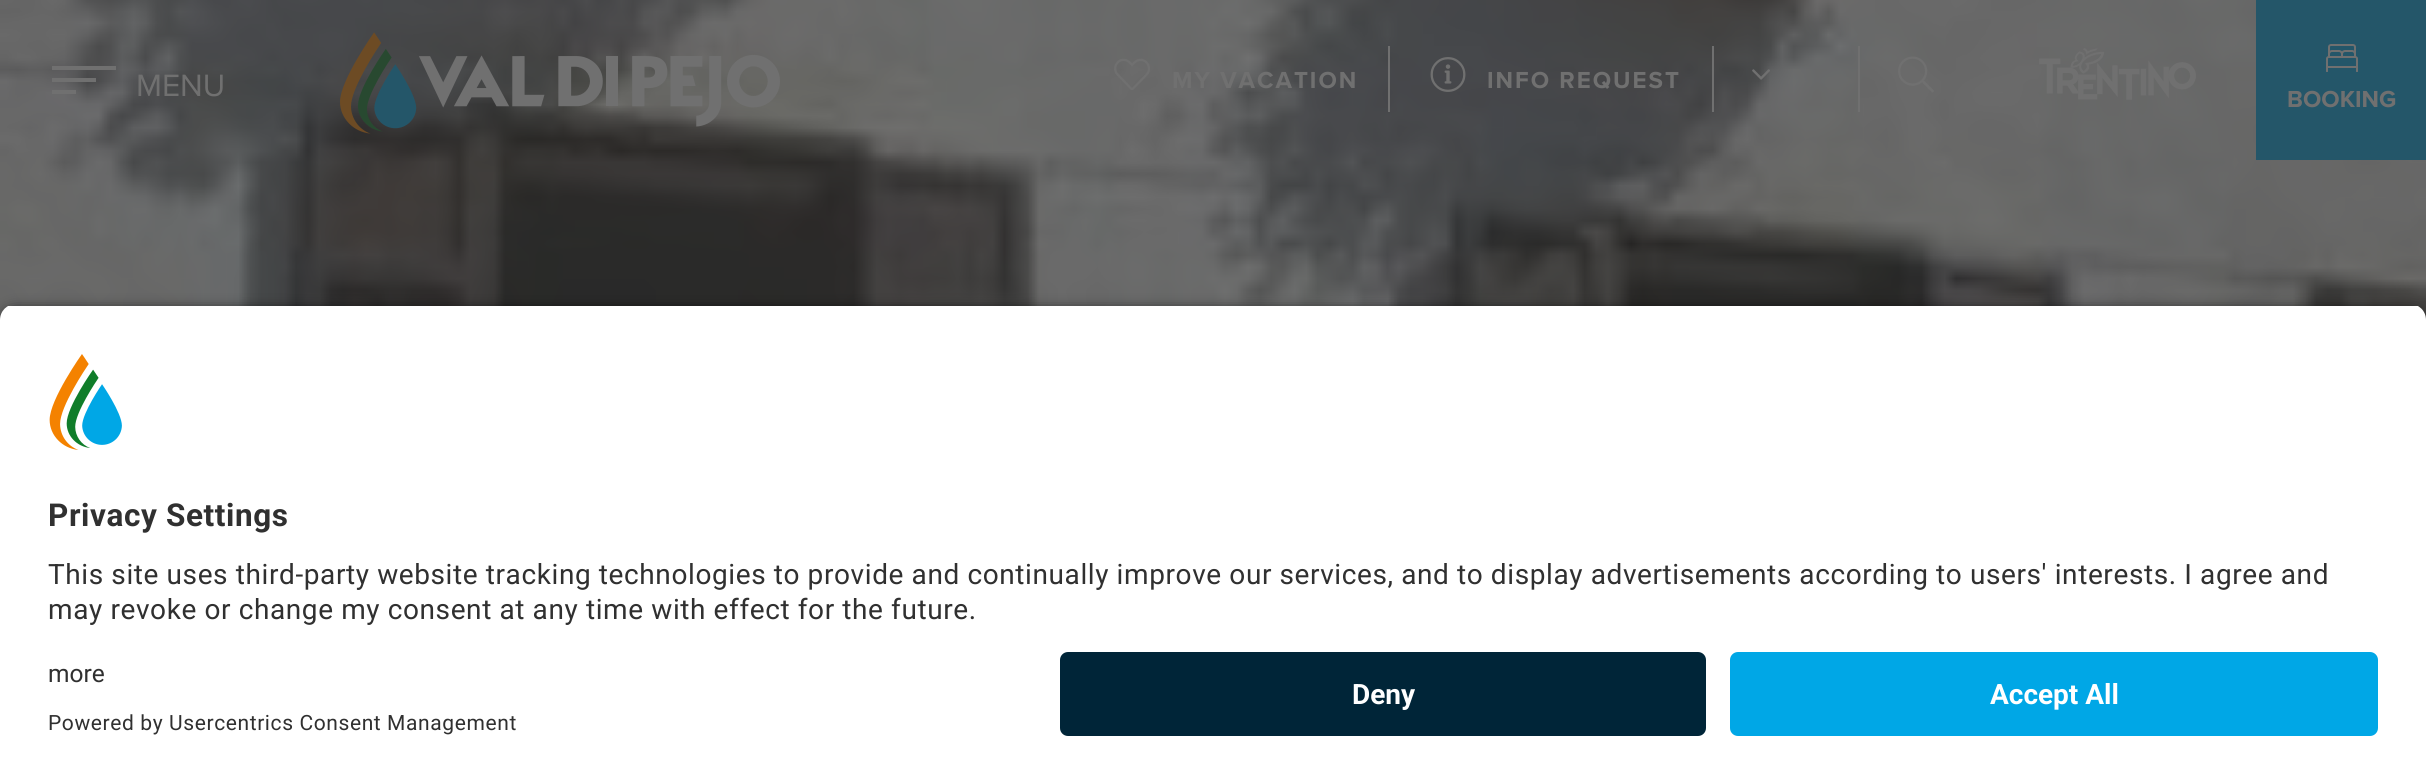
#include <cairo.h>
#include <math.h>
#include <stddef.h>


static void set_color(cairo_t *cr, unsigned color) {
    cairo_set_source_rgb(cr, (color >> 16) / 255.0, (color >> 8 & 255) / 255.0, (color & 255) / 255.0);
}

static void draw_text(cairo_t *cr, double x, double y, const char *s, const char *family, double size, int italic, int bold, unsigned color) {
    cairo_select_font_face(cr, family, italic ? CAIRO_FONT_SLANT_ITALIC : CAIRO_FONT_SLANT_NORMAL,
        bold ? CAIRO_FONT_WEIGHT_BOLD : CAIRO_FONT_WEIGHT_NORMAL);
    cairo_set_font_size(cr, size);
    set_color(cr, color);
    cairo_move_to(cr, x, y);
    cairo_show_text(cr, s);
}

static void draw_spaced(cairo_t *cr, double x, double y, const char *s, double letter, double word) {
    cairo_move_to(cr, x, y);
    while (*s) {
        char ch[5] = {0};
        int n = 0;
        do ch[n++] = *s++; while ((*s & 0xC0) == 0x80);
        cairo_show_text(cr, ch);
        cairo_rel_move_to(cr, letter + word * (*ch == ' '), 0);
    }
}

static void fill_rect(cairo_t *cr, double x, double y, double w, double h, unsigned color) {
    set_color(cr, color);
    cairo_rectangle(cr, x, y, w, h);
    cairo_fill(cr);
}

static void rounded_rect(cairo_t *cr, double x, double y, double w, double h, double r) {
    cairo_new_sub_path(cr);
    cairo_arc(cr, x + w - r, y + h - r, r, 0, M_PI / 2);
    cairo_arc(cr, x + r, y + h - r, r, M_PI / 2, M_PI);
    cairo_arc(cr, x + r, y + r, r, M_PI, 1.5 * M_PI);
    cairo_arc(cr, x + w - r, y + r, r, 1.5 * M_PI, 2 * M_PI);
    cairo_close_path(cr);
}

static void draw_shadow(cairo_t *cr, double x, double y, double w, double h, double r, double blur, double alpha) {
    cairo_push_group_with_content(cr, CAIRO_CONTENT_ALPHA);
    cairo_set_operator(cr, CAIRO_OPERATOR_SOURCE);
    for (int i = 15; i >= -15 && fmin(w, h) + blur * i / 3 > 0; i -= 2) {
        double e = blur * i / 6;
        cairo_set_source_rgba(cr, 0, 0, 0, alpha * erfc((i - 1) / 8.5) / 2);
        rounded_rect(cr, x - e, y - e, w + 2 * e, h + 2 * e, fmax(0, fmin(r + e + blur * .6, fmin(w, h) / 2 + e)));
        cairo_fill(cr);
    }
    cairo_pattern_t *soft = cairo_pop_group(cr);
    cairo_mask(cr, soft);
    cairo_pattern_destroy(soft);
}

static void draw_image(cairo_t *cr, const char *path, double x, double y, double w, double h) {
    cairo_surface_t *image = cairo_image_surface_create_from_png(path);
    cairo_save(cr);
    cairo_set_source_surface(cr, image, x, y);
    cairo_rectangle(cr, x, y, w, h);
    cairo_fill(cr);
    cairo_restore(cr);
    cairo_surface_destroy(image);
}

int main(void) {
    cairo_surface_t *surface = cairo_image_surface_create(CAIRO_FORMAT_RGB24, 2426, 783);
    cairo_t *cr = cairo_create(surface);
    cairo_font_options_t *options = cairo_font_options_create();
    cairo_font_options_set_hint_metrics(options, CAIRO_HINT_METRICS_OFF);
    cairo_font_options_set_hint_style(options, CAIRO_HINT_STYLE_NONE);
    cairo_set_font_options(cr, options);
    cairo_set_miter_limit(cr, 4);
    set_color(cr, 0xFFFFFF);
    cairo_paint(cr);
    draw_image(cr, "assets/img1.png", 0, 0, 2426, 320);
    fill_rect(cr, 52, 78, 44, 4, 0x707070);
    fill_rect(cr, 52, 66, 64, 4, 0x707070);
    fill_rect(cr, 52, 90, 24, 4, 0x707070);
    draw_text(cr, 136, 96, "MENU", "Proxima Nova", 32, 0, 0, 0x707070);
    draw_image(cr, "assets/img2.png", 340, 32, 440, 102);
    fill_rect(cr, 1388, 46, 2, 66, 0x707070);
    draw_image(cr, "assets/img3.png", 1114, 58, 36, 32);
    cairo_select_font_face(cr, "Proxima Nova", CAIRO_FONT_SLANT_NORMAL, CAIRO_FONT_WEIGHT_BOLD);
    cairo_set_font_size(cr, 24);
    draw_spaced(cr, 1172, 88, "MY VACATION", 2, 0);
    fill_rect(cr, 1712, 46, 2, 66, 0x707070);
    draw_image(cr, "assets/img4.png", 1430, 57, 36, 35);
    draw_spaced(cr, 1487, 88, "INFO REQUEST", 2, 0);
    fill_rect(cr, 1858, 46, 2, 66, 0x707070);
    draw_image(cr, "assets/img5.png", 1752, 69, 18, 11);
    draw_image(cr, "assets/img6.png", 1898, 56, 36, 37);
    draw_image(cr, "assets/img7.png", 2039, 48, 157, 52);
    fill_rect(cr, 2258, 2, 166, 152, 0x245669);
    fill_rect(cr, 2256, 0, 170, 2, 0x245669);
    fill_rect(cr, 2424, 0, 2, 160, 0x245669);
    fill_rect(cr, 2256, 154, 170, 6, 0x245669);
    fill_rect(cr, 2256, 0, 2, 160, 0x245669);
    draw_image(cr, "assets/img8.png", 2326, 44, 32, 28);
    draw_text(cr, 2287, 107, "BOOKING", "Proxima Nova", 24, 0, 1, 0x707070);
    set_color(cr, 0x000000);
    draw_shadow(cr, 0, 310, 2426, 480, 16, 7, 0.8);
    cairo_save(cr);
    cairo_new_path(cr);
    cairo_move_to(cr, 16, 304);
    cairo_line_to(cr, 2410, 304);
    cairo_curve_to(cr, 2419, 304, 2426, 311, 2426, 320);
    cairo_line_to(cr, 2426, 636);
    cairo_line_to(cr, 0, 636);
    cairo_line_to(cr, 0, 320);
    cairo_curve_to(cr, 0, 311, 7, 304, 16, 304);
    cairo_close_path(cr);
    cairo_clip(cr);
    fill_rect(cr, 0, 306, 2426, 330, 0xFFFFFF);
    cairo_restore(cr);
    draw_image(cr, "assets/img9.png", 49, 354, 73, 96);
    cairo_select_font_face(cr, "Roboto", CAIRO_FONT_SLANT_NORMAL, CAIRO_FONT_WEIGHT_BOLD);
    cairo_set_font_size(cr, 31.5);
    set_color(cr, 0x303030);
    draw_spaced(cr, 48, 526, "Privacy Settings", 0.6, 0);
    cairo_select_font_face(cr, "Roboto", CAIRO_FONT_SLANT_NORMAL, CAIRO_FONT_WEIGHT_NORMAL);
    cairo_set_font_size(cr, 28);
    draw_spaced(cr, 48, 584, "This site uses third-party website tracking technologies to provide and continually improve our services, and to display advertisements according to users' interests. I agree and", 0.6, 0);
    draw_spaced(cr, 48, 619, "may revoke or change my consent at any time with effect for the future.", 0.6, 0);
    fill_rect(cr, 0, 636, 2426, 147, 0xFFFFFF);
    draw_text(cr, 48, 682, "more", "Roboto", 24.5, 0, 0, 0x303030);
    cairo_set_font_size(cr, 21);
    draw_spaced(cr, 48, 730, "Powered by Usercentrics Consent Management", 0.6, 0);
    set_color(cr, 0x002538);
    rounded_rect(cr, 1060, 652, 646, 84, 8);
    cairo_fill(cr);
    draw_text(cr, 1352, 704, "Deny", "Roboto", 28, 0, 1, 0xFFFFFF);
    set_color(cr, 0x00A7E6);
    rounded_rect(cr, 1730, 652, 648, 84, 8);
    cairo_fill(cr);
    draw_text(cr, 1990, 704, "Accept All", "Roboto", 28, 0, 1, 0xFFFFFF);
    cairo_surface_write_to_png(surface, "output.png");
    cairo_font_options_destroy(options);
    cairo_destroy(cr);
    cairo_surface_destroy(surface);
    return 0;
}
